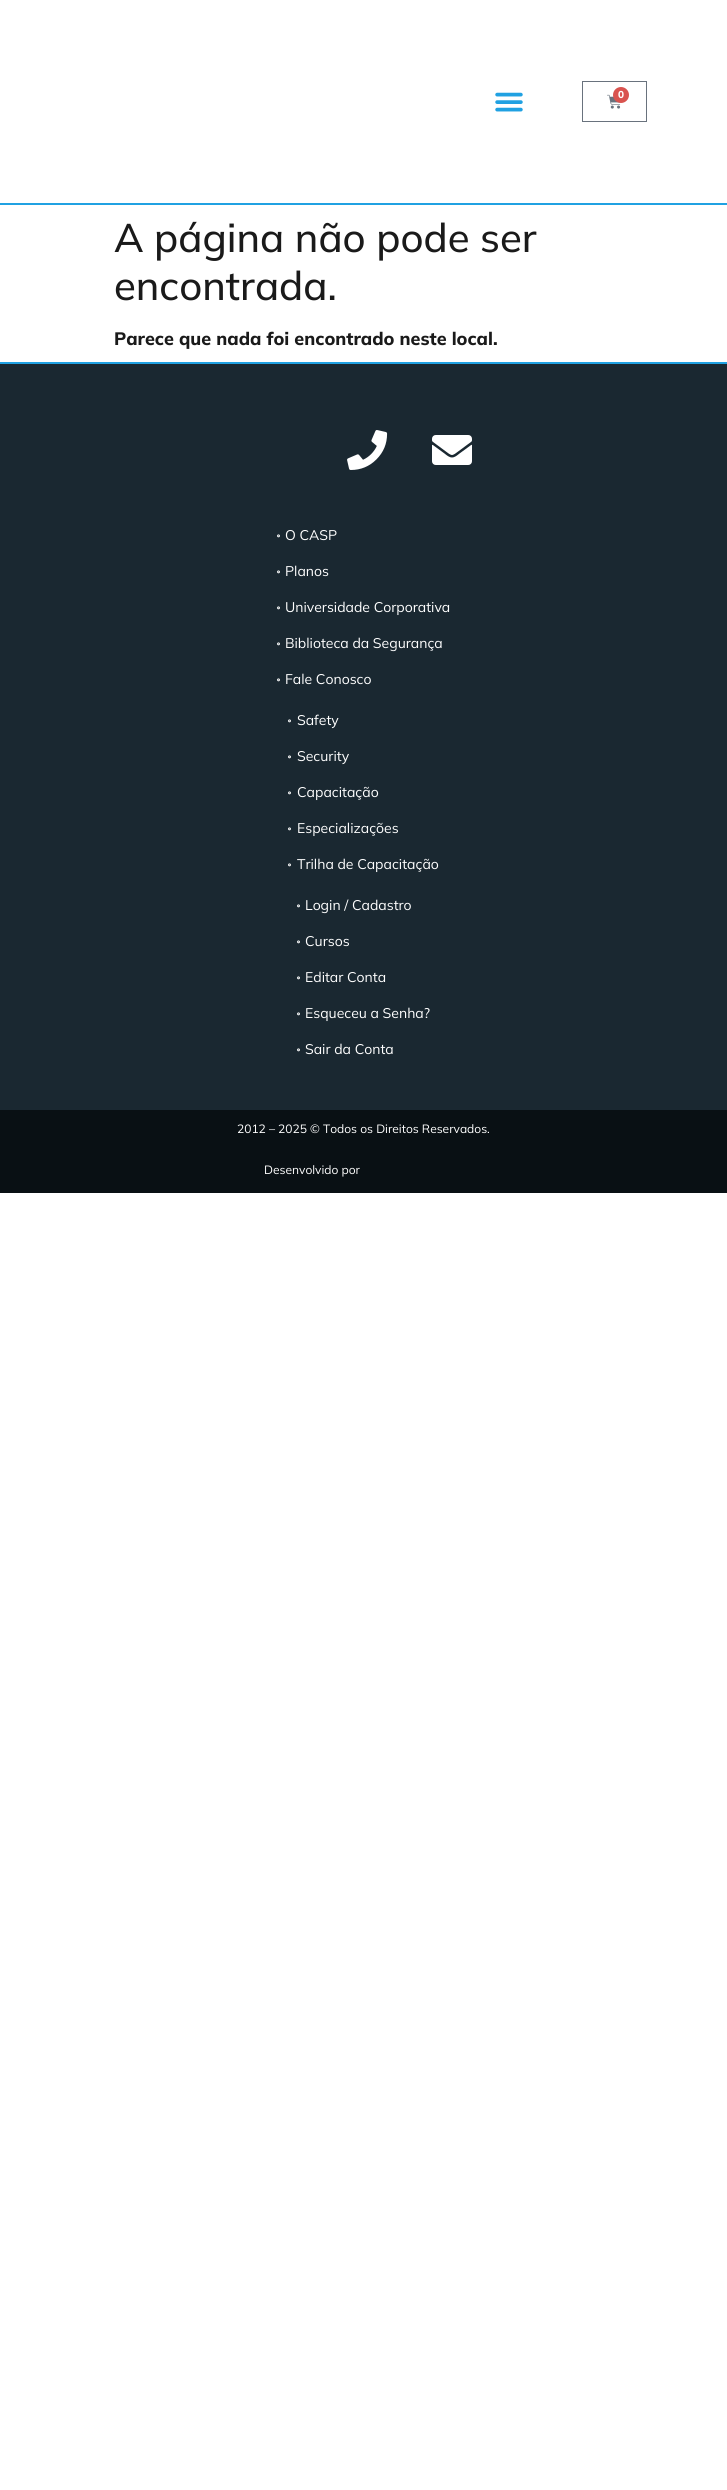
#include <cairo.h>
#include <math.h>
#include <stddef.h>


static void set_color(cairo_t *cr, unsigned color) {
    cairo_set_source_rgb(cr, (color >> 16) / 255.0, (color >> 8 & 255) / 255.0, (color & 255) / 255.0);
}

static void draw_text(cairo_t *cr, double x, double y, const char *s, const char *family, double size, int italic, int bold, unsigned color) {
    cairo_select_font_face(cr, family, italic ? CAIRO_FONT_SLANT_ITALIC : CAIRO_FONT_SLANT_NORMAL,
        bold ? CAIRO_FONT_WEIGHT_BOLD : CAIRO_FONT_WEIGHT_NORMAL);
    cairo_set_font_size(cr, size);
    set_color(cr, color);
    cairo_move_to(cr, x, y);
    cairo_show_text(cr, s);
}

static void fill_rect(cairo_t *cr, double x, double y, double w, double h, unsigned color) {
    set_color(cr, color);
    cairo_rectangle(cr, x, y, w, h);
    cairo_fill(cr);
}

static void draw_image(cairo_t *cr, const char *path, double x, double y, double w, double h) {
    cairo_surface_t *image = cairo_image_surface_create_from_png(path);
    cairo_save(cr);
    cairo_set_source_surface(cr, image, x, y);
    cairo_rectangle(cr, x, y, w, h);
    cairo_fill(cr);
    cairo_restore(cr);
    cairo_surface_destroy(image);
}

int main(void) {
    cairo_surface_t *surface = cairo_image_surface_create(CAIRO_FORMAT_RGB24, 727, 2490);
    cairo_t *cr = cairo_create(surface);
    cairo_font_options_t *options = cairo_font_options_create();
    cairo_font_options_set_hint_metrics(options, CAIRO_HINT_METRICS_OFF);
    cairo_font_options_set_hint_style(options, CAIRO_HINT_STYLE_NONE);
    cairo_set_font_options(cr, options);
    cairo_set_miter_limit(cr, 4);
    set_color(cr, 0xFFFFFF);
    cairo_paint(cr);
    fill_rect(cr, 0, 203, 727, 2, 0x20A1E2);
    draw_image(cr, "assets/img1.png", 495, 92, 28, 20);
    cairo_rectangle(cr, 582.5, 81.5, 64, 40);
    set_color(cr, 0x69727D);
    cairo_set_line_width(cr, 1);
    cairo_stroke(cr);
    draw_image(cr, "assets/img2.png", 607, 94, 14, 15);
    set_color(cr, 0xD9534F);
    cairo_arc(cr, 621, 95, 8, 0, 2 * M_PI);
    cairo_fill(cr);
    draw_text(cr, 618, 98, "0", "Mulish ExtraBold", 10, 0, 0, 0xFFFFFF);
    draw_text(cr, 114, 252, "A página não pode ser", "Mulish Medium", 40, 0, 0, 0x1A1A1A);
    draw_text(cr, 114, 300, "encontrada.", "Mulish Medium", 40, 0, 0, 0x1A1A1A);
    draw_text(cr, 114, 345, "Parece que nada foi encontrado neste local.", "Mulish ExtraBold", 18, 0, 0, 0x1A1A1A);
    fill_rect(cr, 0, 364, 727, 746, 0x1A2831);
    fill_rect(cr, 0, 362, 727, 2, 0x20A1E2);
    draw_image(cr, "assets/img3.png", 347, 430, 41, 40);
    draw_image(cr, "assets/img4.png", 432, 435, 40, 30);
    draw_image(cr, "assets/img5.png", 277, 534, 3, 4);
    draw_text(cr, 285, 540, "O CASP", "Mulish", 14, 0, 0, 0xFFFFFF);
    draw_image(cr, "assets/img5.png", 277, 570, 3, 4);
    draw_text(cr, 285, 576, "Planos", "Mulish", 14, 0, 0, 0xFFFFFF);
    draw_image(cr, "assets/img5.png", 277, 606, 3, 4);
    draw_text(cr, 285, 612, "Universidade Corporativa", "Mulish", 14, 0, 0, 0xFFFFFF);
    draw_image(cr, "assets/img5.png", 277, 642, 3, 4);
    draw_text(cr, 285, 648, "Biblioteca da Segurança", "Mulish", 14, 0, 0, 0xFFFFFF);
    draw_image(cr, "assets/img5.png", 277, 678, 3, 4);
    draw_text(cr, 285, 684, "Fale Conosco", "Mulish", 14, 0, 0, 0xFFFFFF);
    draw_image(cr, "assets/img5.png", 288, 719, 3, 4);
    draw_text(cr, 297, 725, "Safety", "Mulish", 14, 0, 0, 0xFFFFFF);
    draw_image(cr, "assets/img5.png", 288, 755, 3, 4);
    draw_text(cr, 297, 761, "Security", "Mulish", 14, 0, 0, 0xFFFFFF);
    draw_image(cr, "assets/img5.png", 288, 791, 3, 4);
    draw_text(cr, 297, 797, "Capacitação", "Mulish", 14, 0, 0, 0xFFFFFF);
    draw_image(cr, "assets/img5.png", 288, 827, 3, 4);
    draw_text(cr, 297, 833, "Especializações", "Mulish", 14, 0, 0, 0xFFFFFF);
    draw_image(cr, "assets/img5.png", 288, 863, 3, 4);
    draw_text(cr, 297, 869, "Trilha de Capacitação", "Mulish", 14, 0, 0, 0xFFFFFF);
    draw_image(cr, "assets/img5.png", 297, 904, 3, 4);
    draw_text(cr, 305, 910, "Login / Cadastro", "Mulish", 14, 0, 0, 0xFFFFFF);
    draw_image(cr, "assets/img5.png", 297, 940, 3, 4);
    draw_text(cr, 305, 946, "Cursos", "Mulish", 14, 0, 0, 0xFFFFFF);
    draw_image(cr, "assets/img5.png", 297, 976, 3, 4);
    draw_text(cr, 305, 982, "Editar Conta", "Mulish", 14, 0, 0, 0xFFFFFF);
    draw_image(cr, "assets/img5.png", 297, 1012, 3, 4);
    draw_text(cr, 305, 1018, "Esqueceu a Senha?", "Mulish", 14, 0, 0, 0xFFFFFF);
    draw_image(cr, "assets/img5.png", 297, 1048, 3, 4);
    draw_text(cr, 305, 1054, "Sair da Conta", "Mulish", 14, 0, 0, 0xFFFFFF);
    fill_rect(cr, 0, 1110, 727, 83, 0x091014);
    draw_text(cr, 237, 1133, "2012 – 2025 © Todos os Direitos Reservados.", "Mulish", 12, 0, 0, 0xFFFFFF);
    draw_text(cr, 264, 1174, "Desenvolvido por", "Mulish", 12, 0, 0, 0xFFFFFF);
    cairo_surface_write_to_png(surface, "output.png");
    cairo_font_options_destroy(options);
    cairo_destroy(cr);
    cairo_surface_destroy(surface);
    return 0;
}
